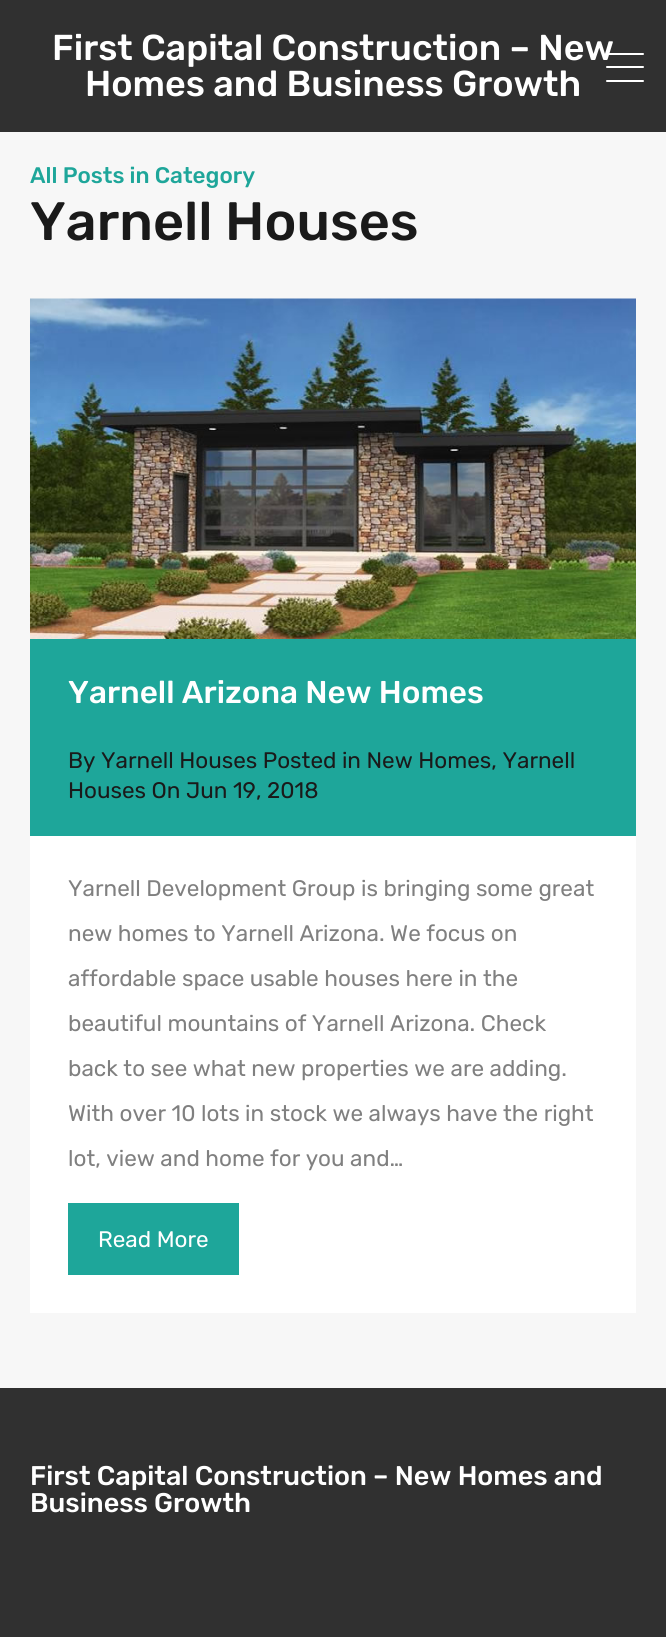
#include <cairo.h>
#include <math.h>
#include <stddef.h>


static void set_color(cairo_t *cr, unsigned color) {
    cairo_set_source_rgb(cr, (color >> 16) / 255.0, (color >> 8 & 255) / 255.0, (color & 255) / 255.0);
}

static void draw_text(cairo_t *cr, double x, double y, const char *s, const char *family, double size, int italic, int bold, unsigned color) {
    cairo_select_font_face(cr, family, italic ? CAIRO_FONT_SLANT_ITALIC : CAIRO_FONT_SLANT_NORMAL,
        bold ? CAIRO_FONT_WEIGHT_BOLD : CAIRO_FONT_WEIGHT_NORMAL);
    cairo_set_font_size(cr, size);
    set_color(cr, color);
    cairo_move_to(cr, x, y);
    cairo_show_text(cr, s);
}

static void fill_rect(cairo_t *cr, double x, double y, double w, double h, unsigned color) {
    set_color(cr, color);
    cairo_rectangle(cr, x, y, w, h);
    cairo_fill(cr);
}

static void rounded_rect(cairo_t *cr, double x, double y, double w, double h, double r) {
    cairo_new_sub_path(cr);
    cairo_arc(cr, x + w - r, y + h - r, r, 0, M_PI / 2);
    cairo_arc(cr, x + r, y + h - r, r, M_PI / 2, M_PI);
    cairo_arc(cr, x + r, y + r, r, M_PI, 1.5 * M_PI);
    cairo_arc(cr, x + w - r, y + r, r, 1.5 * M_PI, 2 * M_PI);
    cairo_close_path(cr);
}

static void draw_image(cairo_t *cr, const char *path, double x, double y, double w, double h) {
    cairo_surface_t *image = cairo_image_surface_create_from_png(path);
    cairo_save(cr);
    cairo_set_source_surface(cr, image, x, y);
    cairo_rectangle(cr, x, y, w, h);
    cairo_fill(cr);
    cairo_restore(cr);
    cairo_surface_destroy(image);
}

int main(void) {
    cairo_surface_t *surface = cairo_image_surface_create(CAIRO_FORMAT_RGB24, 666, 1637);
    cairo_t *cr = cairo_create(surface);
    cairo_font_options_t *options = cairo_font_options_create();
    cairo_font_options_set_hint_metrics(options, CAIRO_HINT_METRICS_OFF);
    cairo_font_options_set_hint_style(options, CAIRO_HINT_STYLE_NONE);
    cairo_set_font_options(cr, options);
    cairo_set_miter_limit(cr, 4);
    set_color(cr, 0xF7F7F7);
    cairo_paint(cr);
    fill_rect(cr, 0, 0, 666, 132, 0x303030);
    draw_text(cr, 52, 60, "First Capital Construction – New", "Rubik Medium", 36, 0, 0, 0xFFFFFF);
    draw_text(cr, 85, 96, "Homes and Business Growth", "Rubik Medium", 36, 0, 0, 0xFFFFFF);
    rounded_rect(cr, 606, 66, 38, 2, 1);
    cairo_fill(cr);
    rounded_rect(cr, 606, 53, 38, 2, 1);
    cairo_fill(cr);
    rounded_rect(cr, 606, 80, 38, 2, 1);
    cairo_fill(cr);
    draw_text(cr, 30, 183, "All Posts in Category", "Rubik Medium", 22.5, 0, 0, 0x1EA69A);
    draw_text(cr, 30, 240, "Yarnell Houses", "Rubik Medium", 54, 0, 0, 0x1A1A1A);
    fill_rect(cr, 30, 836, 606, 477, 0xFFFFFF);
    draw_image(cr, "assets/img1.png", 30, 298, 606, 341);
    fill_rect(cr, 30, 639, 606, 197, 0x1EA69A);
    draw_text(cr, 68, 703, "Yarnell Arizona New Homes", "Rubik Medium", 31.5, 0, 0, 0xFFFFFF);
    draw_text(cr, 68, 768, "By Yarnell Houses Posted in New Homes, Yarnell", "Rubik", 22.5, 0, 0, 0x1A1A1A);
    draw_text(cr, 68, 798, "Houses On Jun 19, 2018", "Rubik", 22.5, 0, 0, 0x1A1A1A);
    draw_text(cr, 68, 896, "Yarnell Development Group is bringing some great", "Rubik", 22.5, 0, 0, 0x808080);
    draw_text(cr, 68, 941, "new homes to Yarnell Arizona. We focus on", "Rubik", 22.5, 0, 0, 0x808080);
    draw_text(cr, 68, 986, "affordable space usable houses here in the", "Rubik", 22.5, 0, 0, 0x808080);
    draw_text(cr, 68, 1031, "beautiful mountains of Yarnell Arizona. Check", "Rubik", 22.5, 0, 0, 0x808080);
    draw_text(cr, 68, 1076, "back to see what new properties we are adding.", "Rubik", 22.5, 0, 0, 0x808080);
    draw_text(cr, 68, 1121, "With over 10 lots in stock we always have the right", "Rubik", 22.5, 0, 0, 0x808080);
    draw_text(cr, 68, 1166, "lot, view and home for you and…", "Rubik", 22.5, 0, 0, 0x808080);
    fill_rect(cr, 68, 1203, 171, 72, 0x1EA69A);
    draw_text(cr, 98, 1247, "Read More", "Rubik", 22.5, 0, 0, 0xFFFFFF);
    fill_rect(cr, 0, 1388, 666, 249, 0x303030);
    draw_text(cr, 30, 1485, "First Capital Construction – New Homes and", "Rubik Medium", 27, 0, 0, 0xFFFFFF);
    draw_text(cr, 30, 1512, "Business Growth", "Rubik Medium", 27, 0, 0, 0xFFFFFF);
    cairo_surface_write_to_png(surface, "output.png");
    cairo_font_options_destroy(options);
    cairo_destroy(cr);
    cairo_surface_destroy(surface);
    return 0;
}
